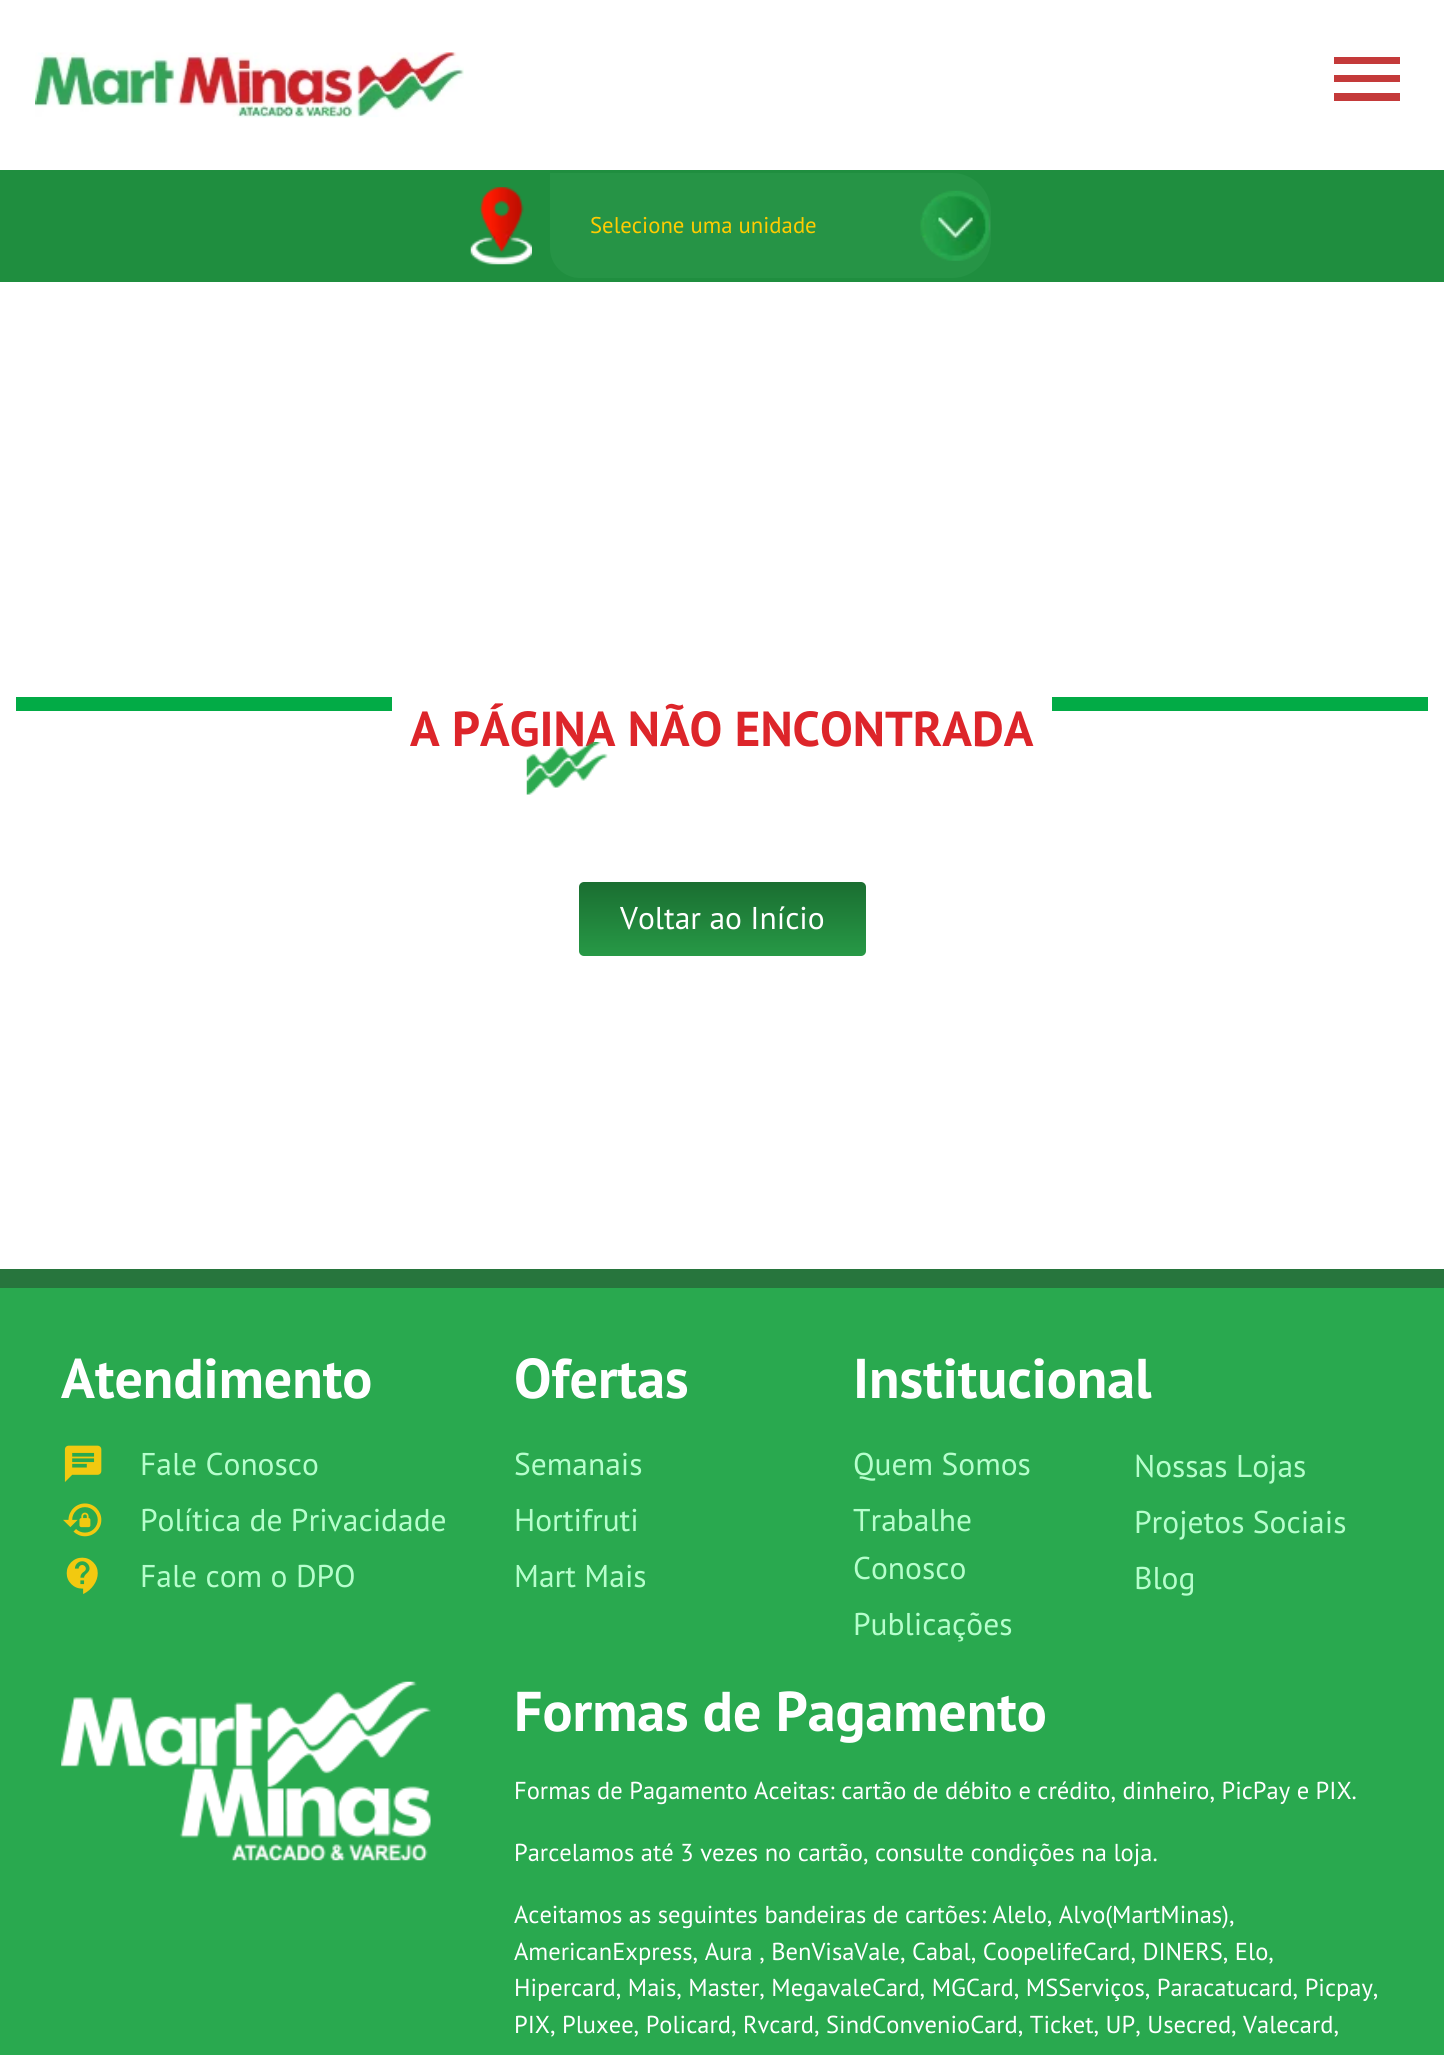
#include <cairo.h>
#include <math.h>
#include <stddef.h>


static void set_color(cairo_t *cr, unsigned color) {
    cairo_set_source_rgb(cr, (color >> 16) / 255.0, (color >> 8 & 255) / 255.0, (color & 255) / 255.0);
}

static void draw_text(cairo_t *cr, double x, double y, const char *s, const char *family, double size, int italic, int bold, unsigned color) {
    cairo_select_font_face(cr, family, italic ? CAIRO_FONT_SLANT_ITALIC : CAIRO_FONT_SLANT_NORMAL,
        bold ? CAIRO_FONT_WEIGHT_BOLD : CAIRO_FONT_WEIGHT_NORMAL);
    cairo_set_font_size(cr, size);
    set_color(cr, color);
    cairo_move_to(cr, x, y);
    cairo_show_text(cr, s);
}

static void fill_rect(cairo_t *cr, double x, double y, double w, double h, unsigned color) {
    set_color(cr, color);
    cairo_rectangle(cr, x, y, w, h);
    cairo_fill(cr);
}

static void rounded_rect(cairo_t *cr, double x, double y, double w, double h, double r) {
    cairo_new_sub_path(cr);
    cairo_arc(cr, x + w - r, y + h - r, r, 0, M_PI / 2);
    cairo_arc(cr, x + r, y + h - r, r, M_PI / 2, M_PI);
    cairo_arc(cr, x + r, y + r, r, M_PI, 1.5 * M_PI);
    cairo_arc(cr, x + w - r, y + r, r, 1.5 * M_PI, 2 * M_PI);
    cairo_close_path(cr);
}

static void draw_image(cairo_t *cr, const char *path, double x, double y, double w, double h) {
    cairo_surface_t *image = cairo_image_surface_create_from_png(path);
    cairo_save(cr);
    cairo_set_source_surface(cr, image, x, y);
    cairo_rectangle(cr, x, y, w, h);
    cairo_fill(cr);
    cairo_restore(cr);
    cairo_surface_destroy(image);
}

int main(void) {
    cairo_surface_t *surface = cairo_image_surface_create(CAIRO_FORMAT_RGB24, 1444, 2055);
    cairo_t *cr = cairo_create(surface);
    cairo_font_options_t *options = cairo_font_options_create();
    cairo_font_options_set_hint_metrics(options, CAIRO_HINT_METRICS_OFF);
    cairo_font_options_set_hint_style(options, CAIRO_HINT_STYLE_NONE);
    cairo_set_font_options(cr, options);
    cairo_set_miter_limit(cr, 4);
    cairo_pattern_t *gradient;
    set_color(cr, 0xFFFFFF);
    cairo_paint(cr);
    draw_image(cr, "assets/img1.png", 35, 52, 429, 66);
    set_color(cr, 0xC43A3A);
    cairo_new_path(cr);
    cairo_move_to(cr, 1334, 57);
    cairo_line_to(cr, 1400, 57);
    cairo_line_to(cr, 1400, 64);
    cairo_line_to(cr, 1334, 64);
    cairo_close_path(cr);
    cairo_move_to(cr, 1334, 82);
    cairo_line_to(cr, 1334, 75);
    cairo_line_to(cr, 1400, 75);
    cairo_line_to(cr, 1400, 82);
    cairo_close_path(cr);
    cairo_move_to(cr, 1334, 101);
    cairo_line_to(cr, 1334, 93);
    cairo_line_to(cr, 1400, 93);
    cairo_line_to(cr, 1400, 101);
    cairo_close_path(cr);
    cairo_fill(cr);
    fill_rect(cr, 0, 170, 1444, 112, 0x1F8E3F);
    draw_image(cr, "assets/img2.png", 470, 187, 62, 78);
    set_color(cr, 0x269446);
    cairo_new_path(cr);
    cairo_move_to(cr, 550, 173);
    cairo_line_to(cr, 952, 173);
    cairo_curve_to(cr, 973.5, 173, 991, 190.5, 991, 212);
    cairo_line_to(cr, 991, 239);
    cairo_curve_to(cr, 991, 260.5, 973.5, 278, 952, 278);
    cairo_line_to(cr, 580, 278);
    cairo_curve_to(cr, 563.5, 278, 550, 264.5, 550, 248);
    cairo_close_path(cr);
    cairo_fill(cr);
    draw_image(cr, "assets/img3.png", 920, 190, 71, 71);
    draw_text(cr, 590, 233, "Selecione uma unidade", "PT Sans", 22.75, 0, 0, 0xFFCC01);
    fill_rect(cr, 16, 697, 376, 14, 0x02AB46);
    draw_text(cr, 410, 746, "A PÁGINA NÃO ENCONTRADA", "PT Sans", 49, 0, 1, 0xDD252A);
    fill_rect(cr, 1052, 697, 376, 14, 0x02AB46);
    draw_image(cr, "assets/img4.png", 526, 742, 82, 53);
    gradient = cairo_pattern_create_linear(723, 882, 723, 956);
    cairo_pattern_add_color_stop_rgba(gradient, 0, 0.102, 0.431, 0.192, 1);
    cairo_pattern_add_color_stop_rgba(gradient, 1, 0.153, 0.6, 0.275, 1);
    cairo_set_source(cr, gradient);
    cairo_pattern_destroy(gradient);
    rounded_rect(cr, 579, 882, 287, 74, 5);
    cairo_fill(cr);
    draw_text(cr, 620, 929, "Voltar ao Início", "PT Sans", 31.5, 0, 0, 0xFFFFFF);
    fill_rect(cr, 0, 1288, 1444, 767, 0x29A94F);
    fill_rect(cr, 0, 1269, 1444, 19, 0x27753D);
    draw_text(cr, 61, 1398, "Atendimento", "PT Sans", 56, 0, 1, 0xFFFFFF);
    draw_image(cr, "assets/img5.png", 64, 1445, 38, 37);
    draw_text(cr, 140, 1475, "Fale Conosco", "PT Sans", 31.5, 0, 0, 0xB6FECC);
    draw_image(cr, "assets/img6.png", 63, 1503, 39, 34);
    draw_text(cr, 140, 1531, "Política de Privacidade", "PT Sans", 31.5, 0, 0, 0xB6FECC);
    draw_image(cr, "assets/img7.png", 66, 1557, 32, 37);
    draw_text(cr, 140, 1587, "Fale com o DPO", "PT Sans", 31.5, 0, 0, 0xB6FECC);
    draw_text(cr, 514, 1398, "Ofertas", "PT Sans", 56, 0, 1, 0xFFFFFF);
    draw_text(cr, 514, 1475, "Semanais", "PT Sans", 31.5, 0, 0, 0xB6FECC);
    draw_text(cr, 514, 1531, "Hortifruti", "PT Sans", 31.5, 0, 0, 0xB6FECC);
    draw_text(cr, 514, 1587, "Mart Mais", "PT Sans", 31.5, 0, 0, 0xB6FECC);
    draw_text(cr, 853, 1398, "Institucional", "PT Sans", 56, 0, 1, 0xFFFFFF);
    draw_text(cr, 853, 1475, "Quem Somos", "PT Sans", 31.5, 0, 0, 0xB6FECC);
    draw_text(cr, 853, 1531, "Trabalhe", "PT Sans", 31.5, 0, 0, 0xB6FECC);
    draw_text(cr, 853, 1579, "Conosco", "PT Sans", 31.5, 0, 0, 0xB6FECC);
    draw_text(cr, 853, 1635, "Publicações", "PT Sans", 31.5, 0, 0, 0xB6FECC);
    draw_text(cr, 1134, 1477, "Nossas Lojas", "PT Sans", 31.5, 0, 0, 0xB6FECC);
    draw_text(cr, 1134, 1533, "Projetos Sociais", "PT Sans", 31.5, 0, 0, 0xB6FECC);
    draw_text(cr, 1134, 1589, "Blog", "PT Sans", 31.5, 0, 0, 0xB6FECC);
    draw_image(cr, "assets/img8.png", 61, 1681, 370, 180);
    draw_text(cr, 514, 1731, "Formas de Pagamento", "PT Sans", 56, 0, 1, 0xFFFFFF);
    draw_text(cr, 514, 1799, "Formas de Pagamento Aceitas: cartão de débito e crédito, dinheiro, PicPay e PIX.", "PT Sans", 24.5, 0, 0, 0xFFFFFF);
    draw_text(cr, 514, 1861, "Parcelamos até 3 vezes no cartão, consulte condições na loja.", "PT Sans", 24.5, 0, 0, 0xFFFFFF);
    draw_text(cr, 514, 1923, "Aceitamos as seguintes bandeiras de cartões: Alelo, Alvo(MartMinas),", "PT Sans", 24.5, 0, 0, 0xFFFFFF);
    draw_text(cr, 514, 1960, "AmericanExpress, Aura , BenVisaVale, Cabal, CoopelifeCard, DINERS, Elo,", "PT Sans", 24.5, 0, 0, 0xFFFFFF);
    draw_text(cr, 514, 1996, "Hipercard, Mais, Master, MegavaleCard, MGCard, MSServiços, Paracatucard, Picpay,", "PT Sans", 24.5, 0, 0, 0xFFFFFF);
    draw_text(cr, 514, 2033, "PIX, Pluxee, Policard, Rvcard, SindConvenioCard, Ticket, UP, Usecred, Valecard,", "PT Sans", 24.5, 0, 0, 0xFFFFFF);
    cairo_surface_write_to_png(surface, "output.png");
    cairo_font_options_destroy(options);
    cairo_destroy(cr);
    cairo_surface_destroy(surface);
    return 0;
}
